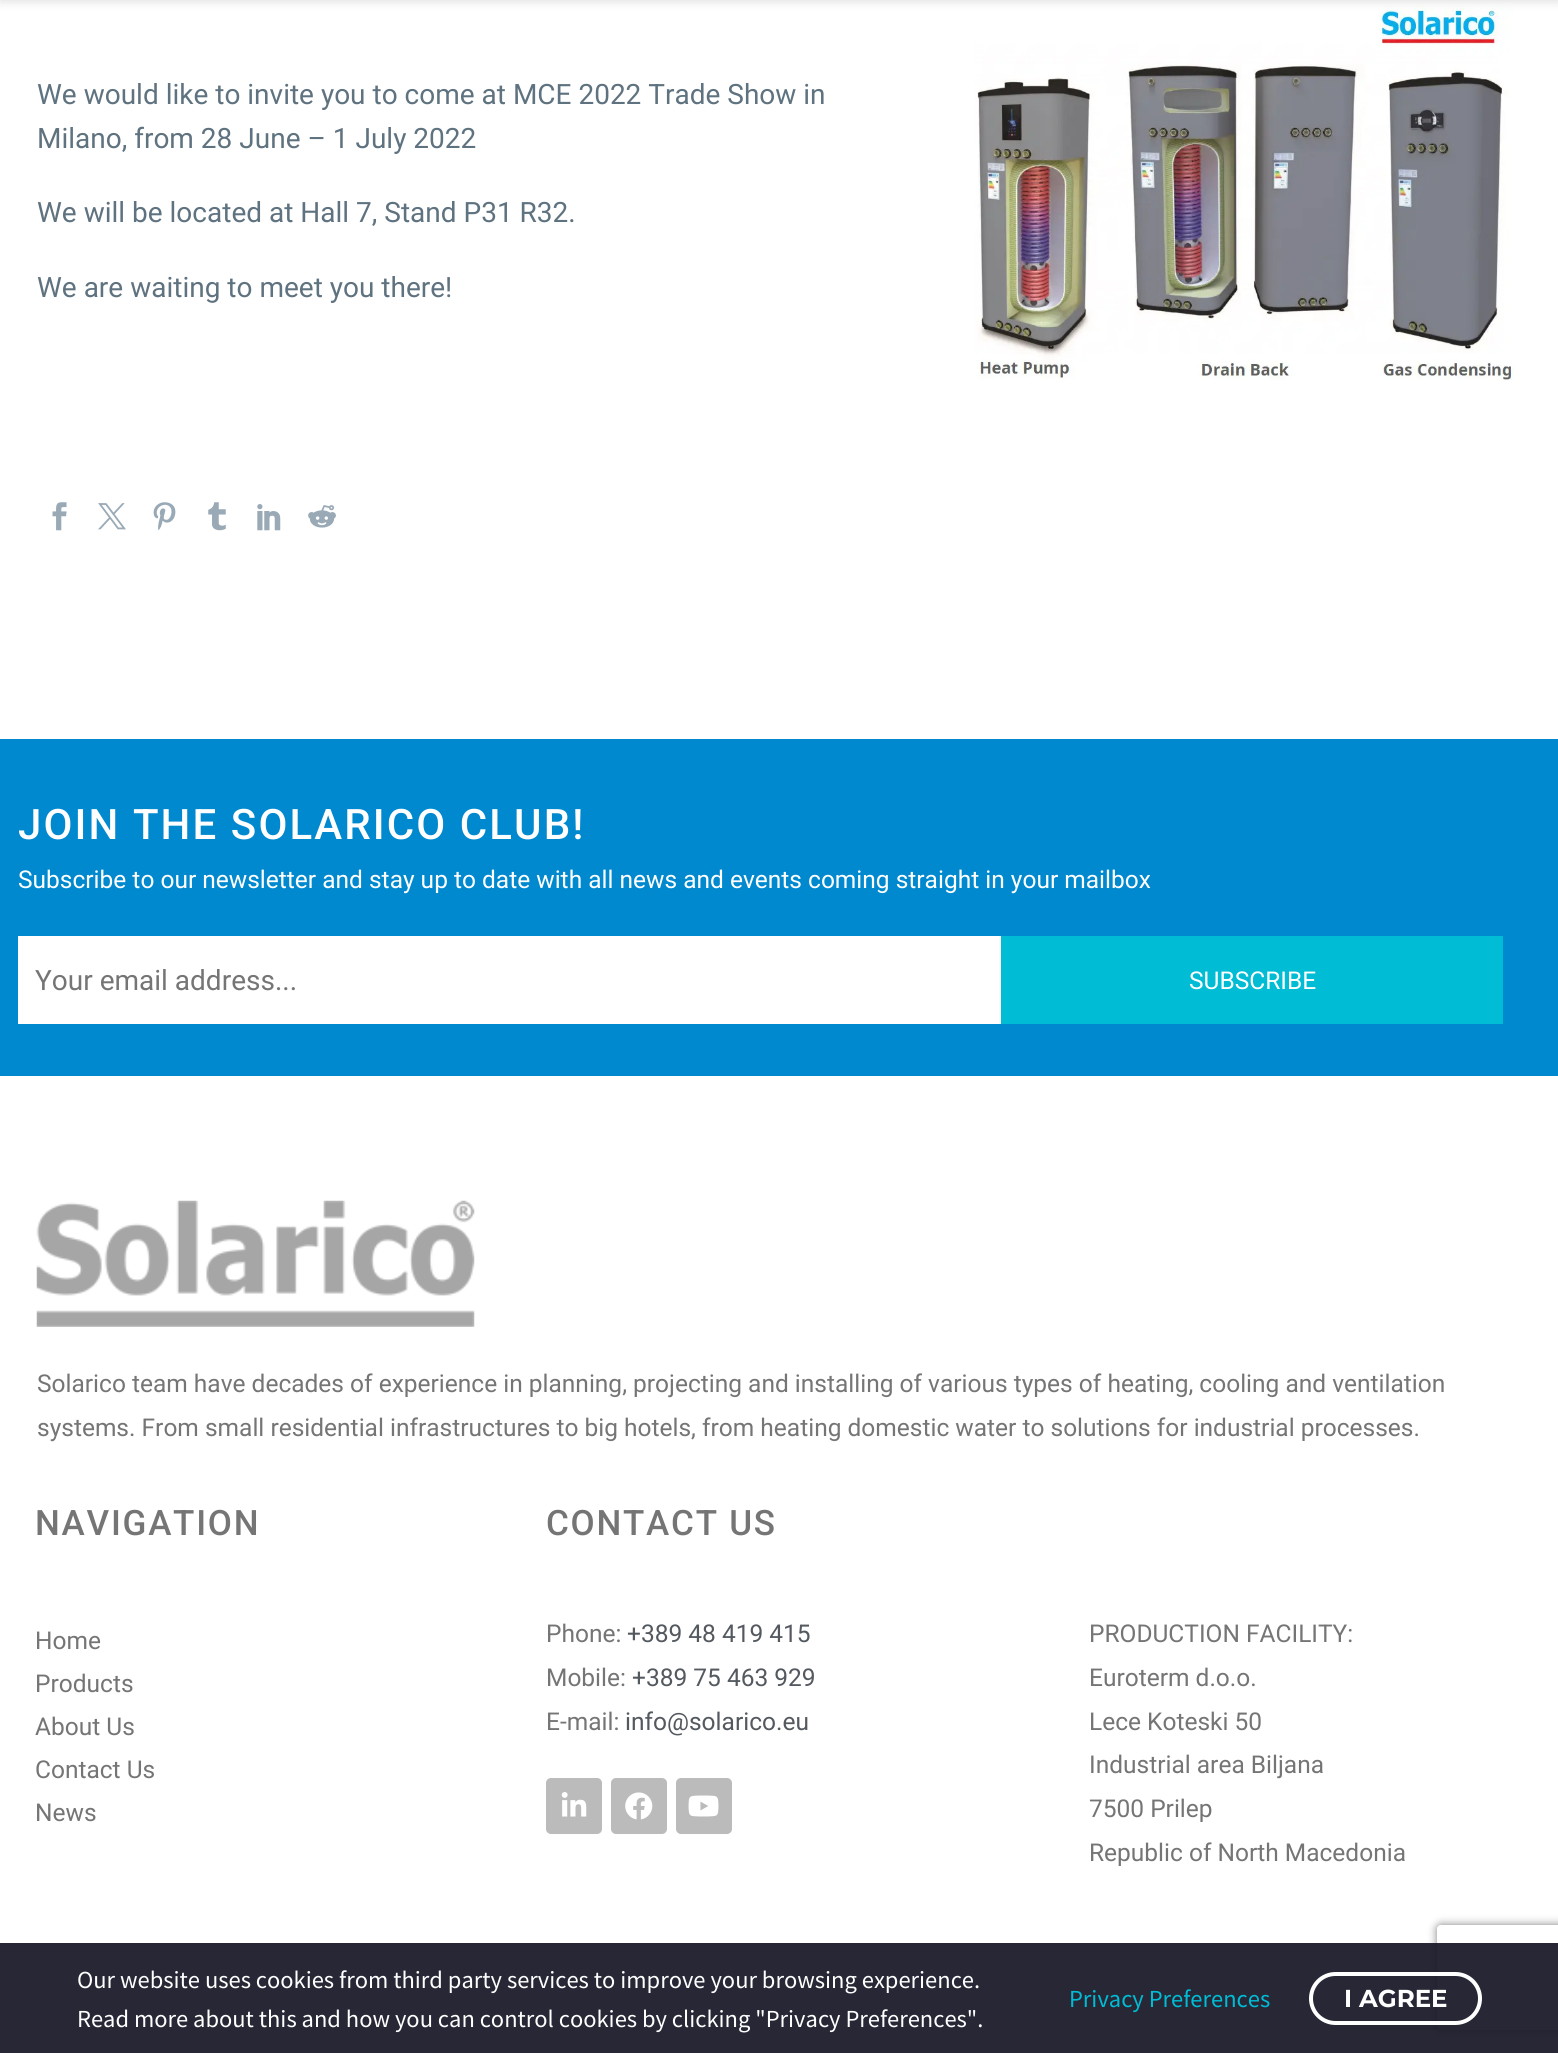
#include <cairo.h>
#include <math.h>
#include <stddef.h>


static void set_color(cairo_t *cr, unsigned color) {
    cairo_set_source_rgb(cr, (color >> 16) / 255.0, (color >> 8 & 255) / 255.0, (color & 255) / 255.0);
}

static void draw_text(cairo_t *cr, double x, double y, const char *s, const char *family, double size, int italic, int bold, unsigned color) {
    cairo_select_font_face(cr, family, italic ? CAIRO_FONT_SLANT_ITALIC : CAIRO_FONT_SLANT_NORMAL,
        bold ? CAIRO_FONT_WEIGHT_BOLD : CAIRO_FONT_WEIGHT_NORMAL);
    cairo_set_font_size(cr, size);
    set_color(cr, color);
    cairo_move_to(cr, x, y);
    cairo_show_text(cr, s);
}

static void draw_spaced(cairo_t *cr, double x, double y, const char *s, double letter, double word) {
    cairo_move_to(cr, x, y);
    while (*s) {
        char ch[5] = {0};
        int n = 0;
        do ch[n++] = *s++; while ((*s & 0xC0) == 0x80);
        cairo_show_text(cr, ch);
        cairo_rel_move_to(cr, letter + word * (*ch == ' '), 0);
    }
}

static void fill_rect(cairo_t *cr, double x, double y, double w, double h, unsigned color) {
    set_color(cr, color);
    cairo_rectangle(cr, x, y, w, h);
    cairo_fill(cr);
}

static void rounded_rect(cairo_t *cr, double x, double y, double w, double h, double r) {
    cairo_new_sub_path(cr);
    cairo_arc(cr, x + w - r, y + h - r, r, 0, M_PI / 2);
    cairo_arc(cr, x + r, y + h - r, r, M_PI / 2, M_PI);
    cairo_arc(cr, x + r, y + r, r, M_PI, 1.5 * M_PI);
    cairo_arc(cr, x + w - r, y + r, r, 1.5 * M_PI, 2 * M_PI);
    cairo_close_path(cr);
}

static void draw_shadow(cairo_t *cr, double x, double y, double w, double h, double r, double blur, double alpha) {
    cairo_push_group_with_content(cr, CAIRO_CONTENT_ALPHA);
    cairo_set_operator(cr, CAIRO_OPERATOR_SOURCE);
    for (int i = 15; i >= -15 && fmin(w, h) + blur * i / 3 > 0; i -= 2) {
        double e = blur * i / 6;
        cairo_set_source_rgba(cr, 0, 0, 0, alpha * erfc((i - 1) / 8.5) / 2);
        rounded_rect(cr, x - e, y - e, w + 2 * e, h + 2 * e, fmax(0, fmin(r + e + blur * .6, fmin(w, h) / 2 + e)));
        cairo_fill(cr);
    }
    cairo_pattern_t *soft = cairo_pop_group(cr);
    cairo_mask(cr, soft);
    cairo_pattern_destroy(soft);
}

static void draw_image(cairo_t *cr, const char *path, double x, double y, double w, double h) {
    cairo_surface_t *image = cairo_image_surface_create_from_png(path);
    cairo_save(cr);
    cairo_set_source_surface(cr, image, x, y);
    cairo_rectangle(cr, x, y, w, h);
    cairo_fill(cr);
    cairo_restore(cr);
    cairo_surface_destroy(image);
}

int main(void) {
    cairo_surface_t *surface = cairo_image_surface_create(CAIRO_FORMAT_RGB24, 1558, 2053);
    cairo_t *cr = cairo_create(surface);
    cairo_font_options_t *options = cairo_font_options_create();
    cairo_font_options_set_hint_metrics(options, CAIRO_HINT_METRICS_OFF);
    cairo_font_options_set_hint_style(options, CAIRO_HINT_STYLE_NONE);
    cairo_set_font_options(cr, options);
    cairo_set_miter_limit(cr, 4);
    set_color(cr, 0xFFFFFF);
    cairo_paint(cr);
    draw_image(cr, "assets/img1.png", 975, 6, 539, 374);
    set_color(cr, 0xBEBEBE);
    draw_shadow(cr, 0, -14, 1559, 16, 0, 4.5, 0.46);
    draw_text(cr, 37, 104, "We would like to invite you to come at MCE 2022 Trade Show in", "Roboto", 28, 0, 0, 0x5F727F);
    draw_text(cr, 37, 148, "Milano, from 28 June – 1 July 2022", "Roboto", 28, 0, 0, 0x5F727F);
    draw_text(cr, 37, 222, "We will be located at Hall 7, Stand P31 R32.", "Roboto", 28, 0, 0, 0x5F727F);
    draw_text(cr, 37, 297, "We are waiting to meet you there!", "Roboto", 28, 0, 0, 0x5F727F);
    draw_image(cr, "assets/img2.png", 52, 502, 15, 29);
    draw_image(cr, "assets/img3.png", 98, 503, 28, 27);
    draw_image(cr, "assets/img4.png", 153, 502, 23, 28);
    draw_image(cr, "assets/img5.png", 208, 502, 18, 29);
    draw_image(cr, "assets/img6.png", 257, 504, 24, 27);
    draw_image(cr, "assets/img7.png", 308, 505, 28, 23);
    fill_rect(cr, 0, 739, 1558, 337, 0x0089CF);
    cairo_select_font_face(cr, "Roboto Medium", CAIRO_FONT_SLANT_NORMAL, CAIRO_FONT_WEIGHT_NORMAL);
    cairo_set_font_size(cr, 42);
    set_color(cr, 0xFFFFFF);
    draw_spaced(cr, 18, 839, "JOIN THE SOLARICO CLUB!", 2.1, 0);
    draw_text(cr, 18, 888, "Subscribe to our newsletter and stay up to date with all news and events coming straight in your mailbox", "Roboto", 24.5, 0, 0, 0xFFFFFF);
    fill_rect(cr, 18, 936, 983, 88, 0xFFFFFF);
    draw_text(cr, 35, 990, "Your email address...", "Roboto", 28, 0, 0, 0x757575);
    fill_rect(cr, 1001, 936, 502, 88, 0x00BCD4);
    draw_text(cr, 1189, 989, "SUBSCRIBE", "Roboto", 24.5, 0, 0, 0xFFFFFF);
    draw_image(cr, "assets/img8.png", 36, 1200, 439, 127);
    draw_text(cr, 37, 1392, "Solarico team have decades of experience in planning, projecting and installing of various types of heating, cooling and ventilation", "Roboto", 24.5, 0, 0, 0x757575);
    draw_text(cr, 37, 1436, "systems. From small residential infrastructures to big hotels, from heating domestic water to solutions for industrial processes.", "Roboto", 24.5, 0, 0, 0x757575);
    cairo_select_font_face(cr, "Roboto Medium", CAIRO_FONT_SLANT_NORMAL, CAIRO_FONT_WEIGHT_NORMAL);
    cairo_set_font_size(cr, 35);
    draw_spaced(cr, 35, 1535, "NAVIGATION", 1.75, 0);
    draw_text(cr, 35, 1649, "Home", "Roboto", 24.5, 0, 0, 0x757575);
    draw_text(cr, 35, 1692, "Products", "Roboto", 24.5, 0, 0, 0x757575);
    draw_text(cr, 35, 1735, "About Us", "Roboto", 24.5, 0, 0, 0x757575);
    draw_text(cr, 35, 1778, "Contact Us", "Roboto", 24.5, 0, 0, 0x757575);
    draw_text(cr, 35, 1821, "News", "Roboto", 24.5, 0, 0, 0x757575);
    cairo_select_font_face(cr, "Roboto Medium", CAIRO_FONT_SLANT_NORMAL, CAIRO_FONT_WEIGHT_NORMAL);
    cairo_set_font_size(cr, 35);
    draw_spaced(cr, 546, 1535, "CONTACT US", 1.75, 0);
    draw_text(cr, 546, 1642, "Phone:", "Roboto", 24.5, 0, 0, 0x757575);
    draw_text(cr, 627, 1642, "+389 48 419 415", "Roboto", 24.5, 0, 0, 0x54595F);
    draw_text(cr, 546, 1686, "Mobile:", "Roboto", 24.5, 0, 0, 0x757575);
    draw_text(cr, 632, 1686, "+389 75 463 929", "Roboto", 24.5, 0, 0, 0x54595F);
    draw_text(cr, 546, 1730, "E-mail:", "Roboto", 24.5, 0, 0, 0x757575);
    draw_text(cr, 625, 1730, "info@solarico.eu", "Roboto", 24.5, 0, 0, 0x54595F);
    set_color(cr, 0xBBBBBB);
    rounded_rect(cr, 546, 1778, 56, 56, 5);
    cairo_fill(cr);
    draw_image(cr, "assets/img9.png", 561, 1792, 26, 25);
    rounded_rect(cr, 611, 1778, 56, 56, 5);
    cairo_fill(cr);
    draw_image(cr, "assets/img10.png", 625, 1792, 28, 28);
    rounded_rect(cr, 676, 1778, 56, 56, 5);
    cairo_fill(cr);
    draw_image(cr, "assets/img11.png", 688, 1795, 31, 22);
    draw_text(cr, 1089, 1642, "PRODUCTION FACILITY:", "Roboto", 24.5, 0, 0, 0x757575);
    draw_text(cr, 1089, 1686, "Euroterm d.o.o.", "Roboto", 24.5, 0, 0, 0x757575);
    draw_text(cr, 1089, 1730, "Lece Koteski 50", "Roboto", 24.5, 0, 0, 0x757575);
    draw_text(cr, 1089, 1773, "Industrial area Biljana", "Roboto", 24.5, 0, 0, 0x757575);
    draw_text(cr, 1089, 1817, "7500 Prilep", "Roboto", 24.5, 0, 0, 0x757575);
    draw_text(cr, 1089, 1861, "Republic of North Macedonia", "Roboto", 24.5, 0, 0, 0x757575);
    fill_rect(cr, 0, 1944, 1558, 2, 0xEBEBEB);
    cairo_save(cr);
    cairo_set_fill_rule(cr, CAIRO_FILL_RULE_EVEN_ODD);
    cairo_new_path(cr);
    cairo_move_to(cr, 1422, 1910);
    cairo_line_to(cr, 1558, 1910);
    cairo_line_to(cr, 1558, 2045);
    cairo_line_to(cr, 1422, 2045);
    cairo_close_path(cr);
    cairo_move_to(cr, 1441, 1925);
    cairo_line_to(cr, 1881, 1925);
    cairo_curve_to(cr, 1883, 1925, 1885, 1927, 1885, 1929);
    cairo_line_to(cr, 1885, 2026);
    cairo_curve_to(cr, 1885, 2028, 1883, 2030, 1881, 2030);
    cairo_line_to(cr, 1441, 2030);
    cairo_curve_to(cr, 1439, 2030, 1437, 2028, 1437, 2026);
    cairo_line_to(cr, 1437, 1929);
    cairo_curve_to(cr, 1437, 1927, 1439, 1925, 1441, 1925);
    cairo_close_path(cr);
    cairo_clip(cr);
    set_color(cr, 0x808080);
    draw_shadow(cr, 1437, 1925, 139, 105, 4, 4.5, 1);
    cairo_restore(cr);
    cairo_set_source_rgba(cr, 0.094, 0.094, 0.157, 0.93);
    cairo_rectangle(cr, 0, 1943, 1558, 110);
    cairo_fill(cr);
    draw_text(cr, 77, 1988, "Our website uses cookies from third party services to improve your browsing experience.", "Source Sans Pro", 24.5, 0, 0, 0xFFFFFF);
    draw_text(cr, 77, 2027, "Read more about this and how you can control cookies by clicking \"Privacy Preferences\".", "Source Sans Pro", 24.5, 0, 0, 0xFFFFFF);
    draw_text(cr, 1069, 2007, "Privacy Preferences", "Source Sans Pro", 24.5, 0, 0, 0x00BCD4);
    rounded_rect(cr, 1311, 1974, 169, 49, 24.5);
    set_color(cr, 0xFFFFFF);
    cairo_set_line_width(cr, 4);
    cairo_stroke(cr);
    draw_text(cr, 1344, 2007, "I AGREE", "Montserrat", 24.5, 0, 1, 0xFFFFFF);
    cairo_surface_write_to_png(surface, "output.png");
    cairo_font_options_destroy(options);
    cairo_destroy(cr);
    cairo_surface_destroy(surface);
    return 0;
}
